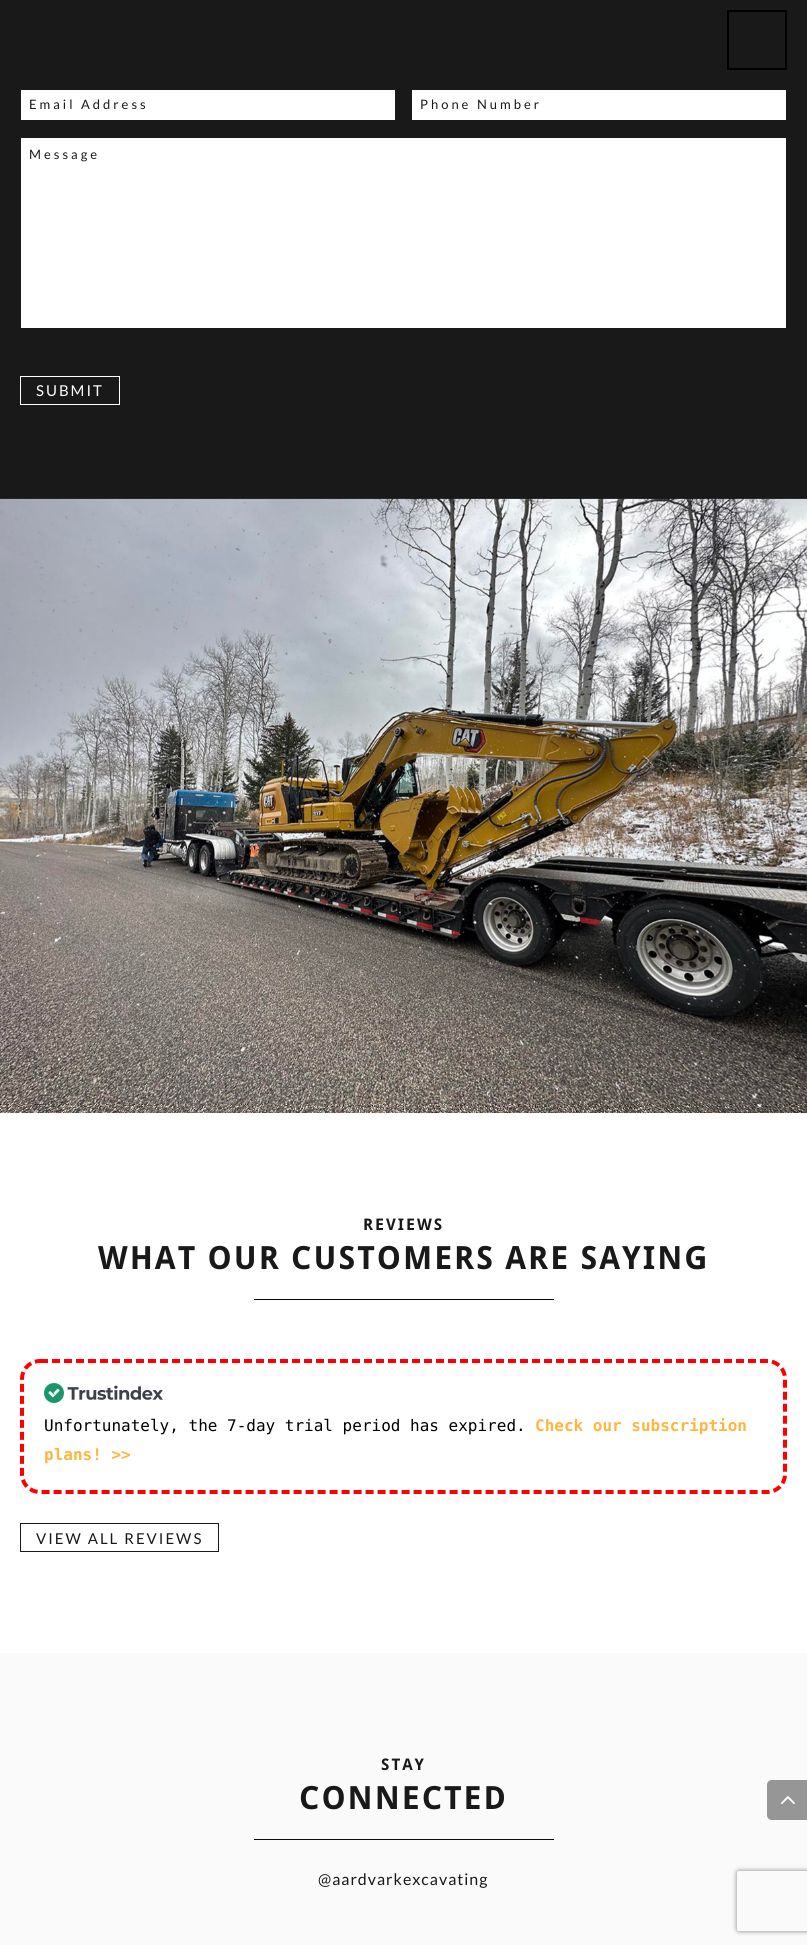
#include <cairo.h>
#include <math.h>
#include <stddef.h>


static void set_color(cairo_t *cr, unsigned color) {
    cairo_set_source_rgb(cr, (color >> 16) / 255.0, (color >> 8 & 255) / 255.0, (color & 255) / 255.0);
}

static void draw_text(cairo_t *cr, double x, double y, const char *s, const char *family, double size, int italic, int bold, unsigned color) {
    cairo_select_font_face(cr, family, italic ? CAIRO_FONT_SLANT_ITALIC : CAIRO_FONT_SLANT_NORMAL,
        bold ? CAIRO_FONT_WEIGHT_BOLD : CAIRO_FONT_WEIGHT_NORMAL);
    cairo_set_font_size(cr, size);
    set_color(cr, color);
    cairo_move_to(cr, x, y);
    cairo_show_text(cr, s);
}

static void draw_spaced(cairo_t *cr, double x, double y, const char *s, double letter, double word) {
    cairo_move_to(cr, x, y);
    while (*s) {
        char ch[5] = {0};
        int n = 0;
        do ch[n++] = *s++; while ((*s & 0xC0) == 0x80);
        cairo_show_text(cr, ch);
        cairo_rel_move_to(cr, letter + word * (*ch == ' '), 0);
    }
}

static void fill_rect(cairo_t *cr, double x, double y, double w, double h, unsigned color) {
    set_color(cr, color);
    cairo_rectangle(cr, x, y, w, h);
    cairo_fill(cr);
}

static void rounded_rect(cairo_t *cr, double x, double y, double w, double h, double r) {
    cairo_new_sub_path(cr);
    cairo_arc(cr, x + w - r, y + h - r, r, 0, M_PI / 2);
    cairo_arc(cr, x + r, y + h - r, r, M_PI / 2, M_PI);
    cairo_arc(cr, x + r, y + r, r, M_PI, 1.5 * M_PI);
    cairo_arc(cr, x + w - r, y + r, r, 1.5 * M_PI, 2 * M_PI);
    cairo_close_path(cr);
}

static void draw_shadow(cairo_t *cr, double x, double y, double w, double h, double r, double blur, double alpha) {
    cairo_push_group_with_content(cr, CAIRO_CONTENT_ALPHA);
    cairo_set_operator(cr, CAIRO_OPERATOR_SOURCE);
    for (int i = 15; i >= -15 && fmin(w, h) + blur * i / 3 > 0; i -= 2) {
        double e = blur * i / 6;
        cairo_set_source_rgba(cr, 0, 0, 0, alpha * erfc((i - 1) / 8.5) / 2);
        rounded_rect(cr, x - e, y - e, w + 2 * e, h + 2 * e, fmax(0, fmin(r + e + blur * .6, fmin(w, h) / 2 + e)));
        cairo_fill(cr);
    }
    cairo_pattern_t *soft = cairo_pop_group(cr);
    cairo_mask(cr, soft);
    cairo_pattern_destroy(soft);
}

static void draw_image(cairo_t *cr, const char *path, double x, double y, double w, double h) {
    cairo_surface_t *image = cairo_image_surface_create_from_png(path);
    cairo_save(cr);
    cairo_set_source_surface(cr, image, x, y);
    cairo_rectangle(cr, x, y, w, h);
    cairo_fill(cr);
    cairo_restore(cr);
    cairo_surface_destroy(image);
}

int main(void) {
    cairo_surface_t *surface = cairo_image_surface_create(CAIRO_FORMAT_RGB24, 807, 1945);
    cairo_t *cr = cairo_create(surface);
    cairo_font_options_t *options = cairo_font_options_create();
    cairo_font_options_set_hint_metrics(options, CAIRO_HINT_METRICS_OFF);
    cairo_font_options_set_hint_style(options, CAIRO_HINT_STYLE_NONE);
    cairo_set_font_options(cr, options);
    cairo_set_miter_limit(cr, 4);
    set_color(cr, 0xFFFFFF);
    cairo_paint(cr);
    fill_rect(cr, 0, 90, 807, 409, 0x191919);
    fill_rect(cr, 21, 90, 374, 30, 0xFFFFFF);
    cairo_rectangle(cr, 20.5, 85.5, 375, 35);
    set_color(cr, 0x191919);
    cairo_set_line_width(cr, 1);
    cairo_stroke(cr);
    fill_rect(cr, 412, 90, 374, 30, 0xFFFFFF);
    cairo_rectangle(cr, 411.5, 85.5, 375, 35);
    set_color(cr, 0x191919);
    cairo_stroke(cr);
    fill_rect(cr, 0, 0, 807, 90, 0x191919);
    cairo_rectangle(cr, 728, 11, 58, 58);
    set_color(cr, 0x000000);
    cairo_set_line_width(cr, 2);
    cairo_stroke(cr);
    cairo_select_font_face(cr, "Lato", CAIRO_FONT_SLANT_NORMAL, CAIRO_FONT_WEIGHT_NORMAL);
    cairo_set_font_size(cr, 13);
    set_color(cr, 0x191919);
    draw_spaced(cr, 29, 109, "Email Address", 3, 0);
    draw_spaced(cr, 420, 109, "Phone Number", 3, 0);
    fill_rect(cr, 21, 138, 765, 190, 0xFFFFFF);
    set_color(cr, 0x191919);
    draw_spaced(cr, 29, 159, "Message", 3, 0);
    fill_rect(cr, 0, 1653, 807, 292, 0xFAFAFA);
    cairo_save(cr);
    cairo_set_fill_rule(cr, CAIRO_FILL_RULE_EVEN_ODD);
    cairo_new_path(cr);
    cairo_move_to(cr, 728, 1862);
    cairo_line_to(cr, 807, 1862);
    cairo_line_to(cr, 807, 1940);
    cairo_line_to(cr, 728, 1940);
    cairo_close_path(cr);
    cairo_move_to(cr, 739, 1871);
    cairo_line_to(cr, 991, 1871);
    cairo_curve_to(cr, 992, 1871, 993, 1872, 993, 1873);
    cairo_line_to(cr, 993, 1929);
    cairo_curve_to(cr, 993, 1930, 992, 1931, 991, 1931);
    cairo_line_to(cr, 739, 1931);
    cairo_curve_to(cr, 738, 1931, 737, 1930, 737, 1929);
    cairo_line_to(cr, 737, 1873);
    cairo_curve_to(cr, 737, 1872, 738, 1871, 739, 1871);
    cairo_close_path(cr);
    cairo_clip(cr);
    set_color(cr, 0x808080);
    draw_shadow(cr, 737, 1871, 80, 60, 2, 2.5, 1);
    cairo_restore(cr);
    cairo_rectangle(cr, 20.5, 376.5, 99, 28);
    set_color(cr, 0xFFFFFF);
    cairo_set_line_width(cr, 1);
    cairo_stroke(cr);
    cairo_set_font_size(cr, 15);
    draw_spaced(cr, 36, 396, "SUBMIT", 2, 0);
    draw_image(cr, "assets/img1.png", 0, 499, 807, 614);
    draw_image(cr, "assets/img2.png", 0, 498, 807, 606);
    cairo_select_font_face(cr, "Droid Sans", CAIRO_FONT_SLANT_NORMAL, CAIRO_FONT_WEIGHT_BOLD);
    cairo_set_font_size(cr, 16);
    set_color(cr, 0x191919);
    draw_spaced(cr, 363, 1230, "REVIEWS", 2, 0);
    cairo_set_font_size(cr, 32);
    draw_spaced(cr, 98, 1269, "WHAT OUR CUSTOMERS ARE SAYING", 2, 0);
    fill_rect(cr, 254, 1299, 300, 1, 0x0C0C0C);
    cairo_new_path(cr);
    cairo_move_to(cr, 40, 1361);
    cairo_line_to(cr, 767, 1361);
    cairo_curve_to(cr, 777, 1361, 785, 1369, 785, 1379);
    cairo_line_to(cr, 785, 1474);
    cairo_curve_to(cr, 785, 1484, 777, 1492, 767, 1492);
    cairo_line_to(cr, 40, 1492);
    cairo_curve_to(cr, 30, 1492, 22, 1484, 22, 1474);
    cairo_line_to(cr, 22, 1379);
    cairo_curve_to(cr, 22, 1369, 30, 1361, 40, 1361);
    cairo_close_path(cr);
    set_color(cr, 0xFF0000);
    cairo_set_line_width(cr, 4);
    cairo_set_dash(cr, (double[]){8, 4}, 2, 0);
    cairo_stroke(cr);
    draw_image(cr, "assets/img3.png", 44, 1383, 119, 20);
    draw_text(cr, 44, 1431, "Unfortunately, the 7-day trial period has expired.", "DejaVu Sans Mono", 16, 0, 0, 0x000000);
    draw_text(cr, 535, 1431, "Check our subscription", "DejaVu Sans Mono", 16, 0, 1, 0xFFB53F);
    draw_text(cr, 44, 1460, "plans! >>", "DejaVu Sans Mono", 16, 0, 1, 0xFFB53F);
    cairo_rectangle(cr, 20.5, 1523.5, 198, 28);
    set_color(cr, 0x191919);
    cairo_set_line_width(cr, 1);
    cairo_set_dash(cr, NULL, 0, 0);
    cairo_stroke(cr);
    cairo_select_font_face(cr, "Lato", CAIRO_FONT_SLANT_NORMAL, CAIRO_FONT_WEIGHT_NORMAL);
    cairo_set_font_size(cr, 15);
    draw_spaced(cr, 36, 1544, "VIEW ALL REVIEWS", 2, 0);
    cairo_select_font_face(cr, "Droid Sans", CAIRO_FONT_SLANT_NORMAL, CAIRO_FONT_WEIGHT_BOLD);
    cairo_set_font_size(cr, 16);
    draw_spaced(cr, 381, 1770, "STAY", 2, 0);
    cairo_set_font_size(cr, 32);
    draw_spaced(cr, 299, 1809, "CONNECTED", 2, 0);
    fill_rect(cr, 254, 1839, 300, 1, 0x0C0C0C);
    cairo_select_font_face(cr, "Lato", CAIRO_FONT_SLANT_NORMAL, CAIRO_FONT_WEIGHT_NORMAL);
    cairo_set_font_size(cr, 16);
    set_color(cr, 0x191919);
    draw_spaced(cr, 318, 1885, "@aardvarkexcavating", 1, 0);
    set_color(cr, 0x969696);
    cairo_new_path(cr);
    cairo_move_to(cr, 772, 1780);
    cairo_line_to(cr, 807, 1780);
    cairo_line_to(cr, 807, 1820);
    cairo_line_to(cr, 772, 1820);
    cairo_curve_to(cr, 769, 1820, 767, 1818, 767, 1815);
    cairo_line_to(cr, 767, 1785);
    cairo_curve_to(cr, 767, 1782, 769, 1780, 772, 1780);
    cairo_close_path(cr);
    cairo_fill(cr);
    draw_image(cr, "assets/img4.png", 781, 1796, 14, 8);
    cairo_surface_write_to_png(surface, "output.png");
    cairo_font_options_destroy(options);
    cairo_destroy(cr);
    cairo_surface_destroy(surface);
    return 0;
}
